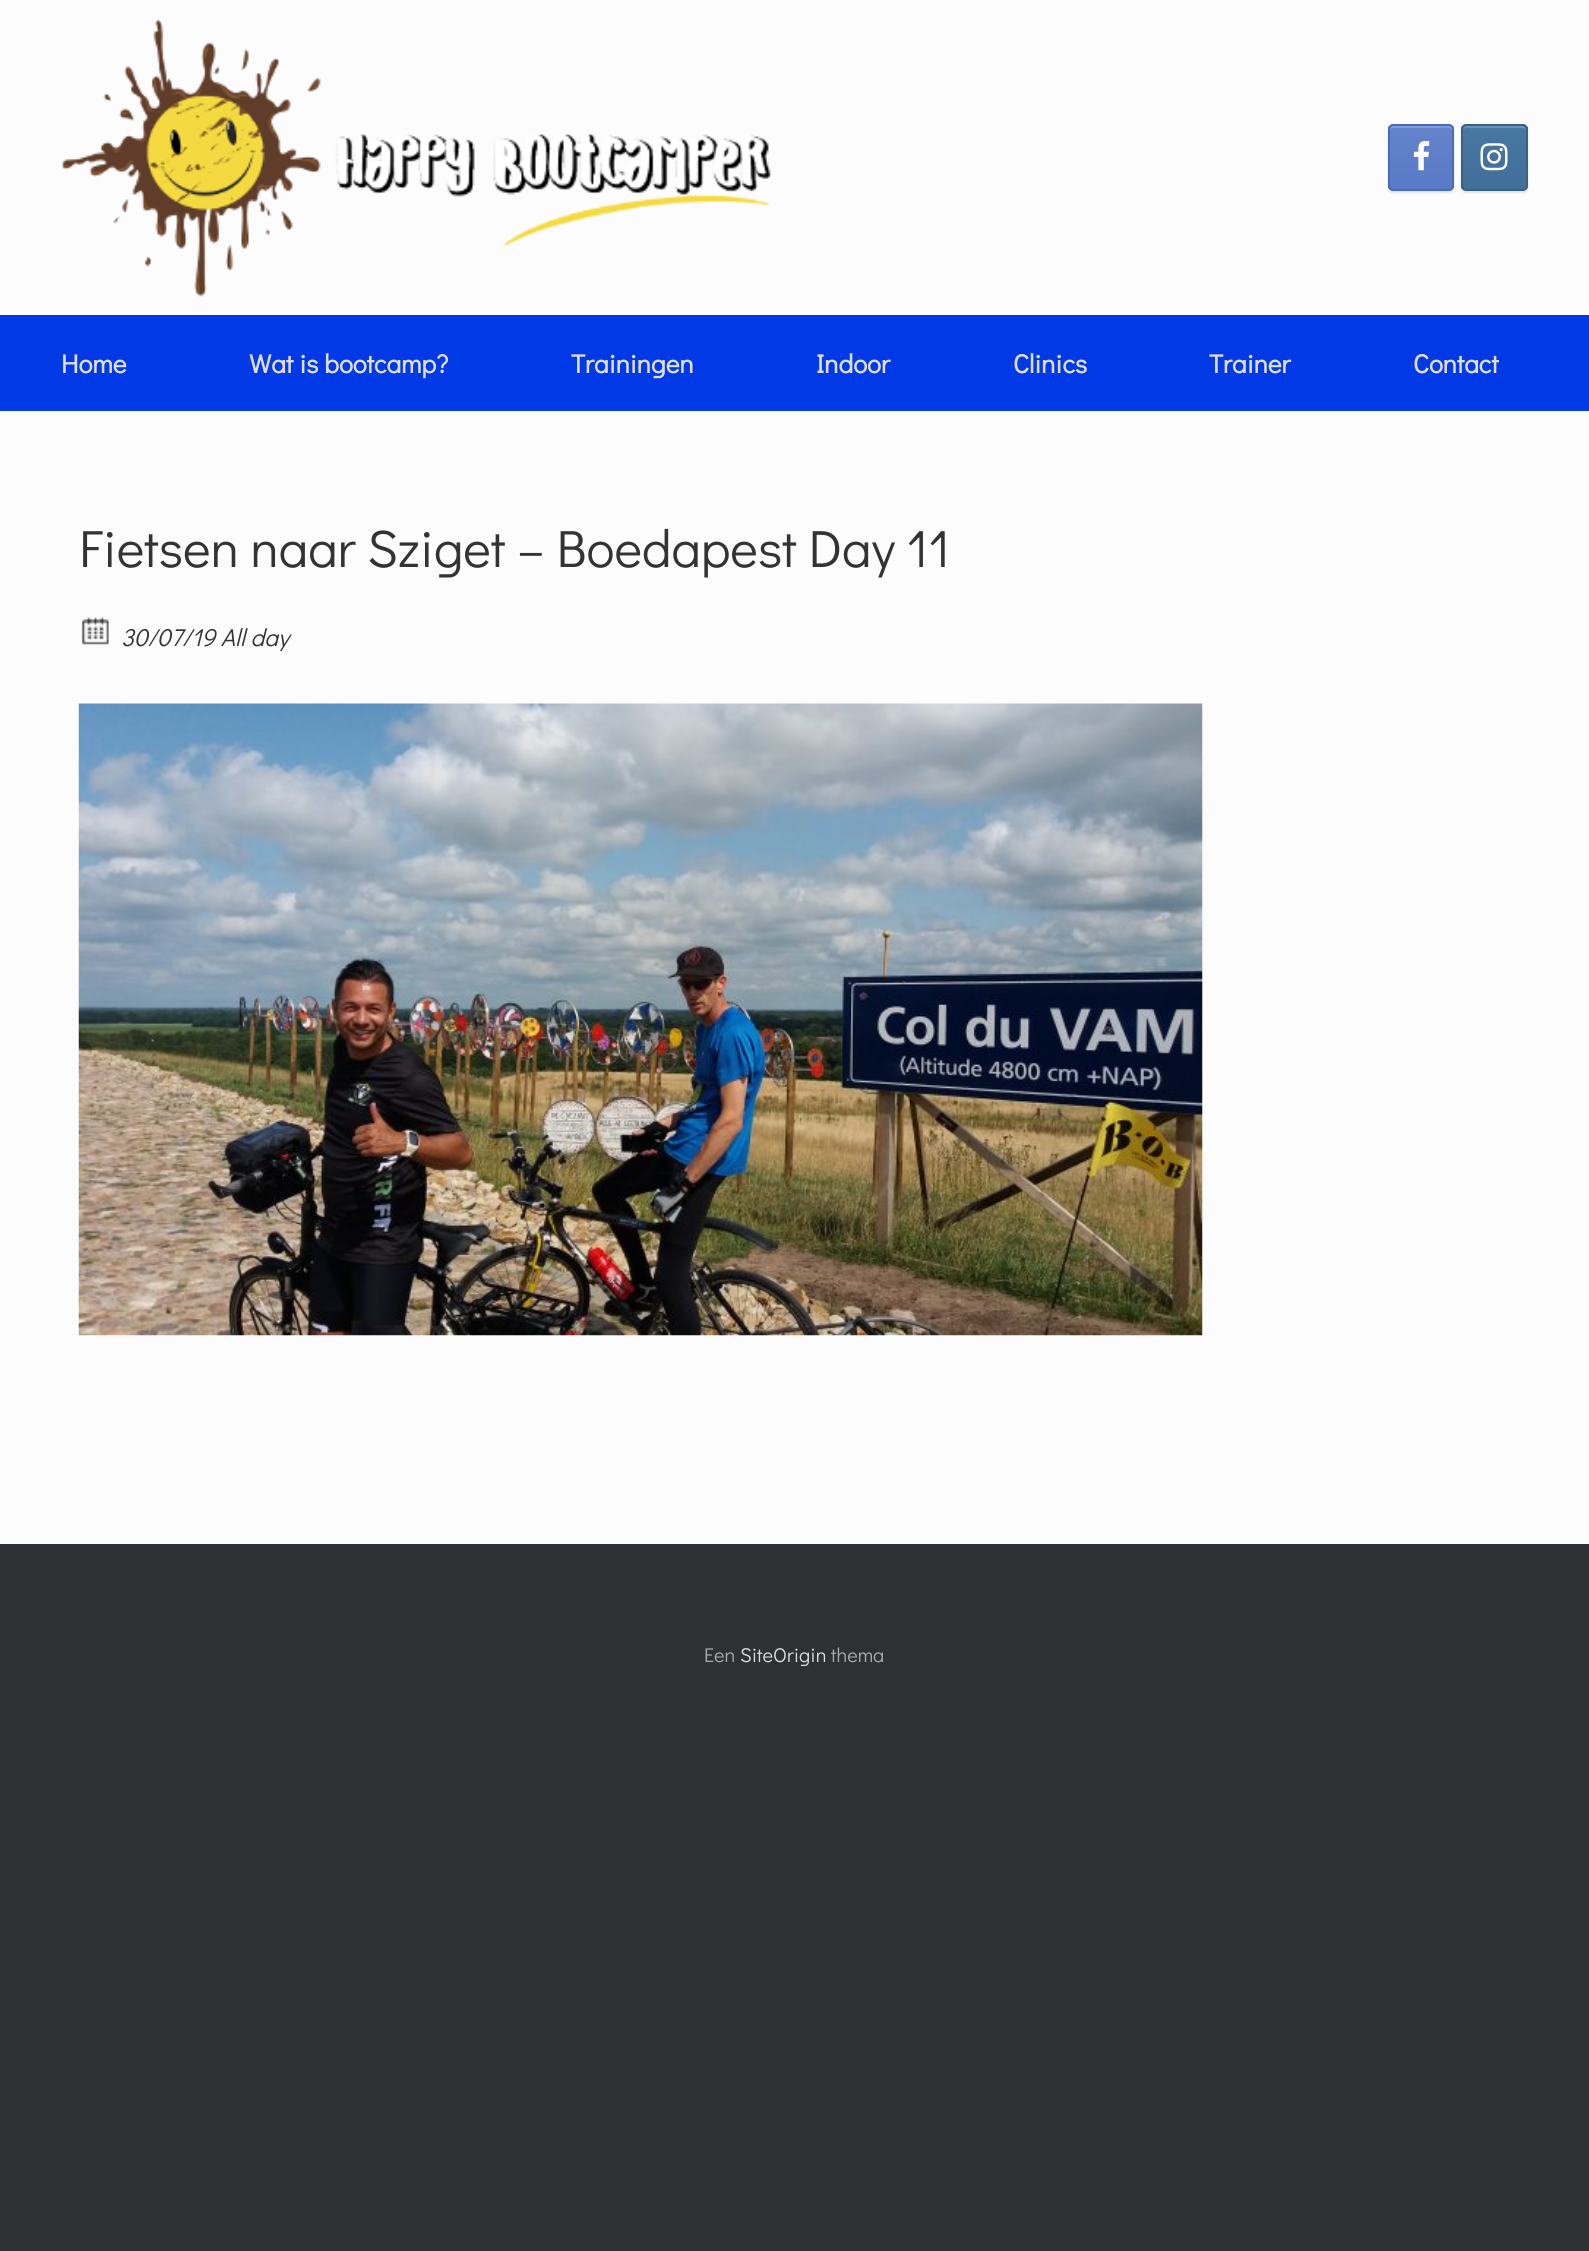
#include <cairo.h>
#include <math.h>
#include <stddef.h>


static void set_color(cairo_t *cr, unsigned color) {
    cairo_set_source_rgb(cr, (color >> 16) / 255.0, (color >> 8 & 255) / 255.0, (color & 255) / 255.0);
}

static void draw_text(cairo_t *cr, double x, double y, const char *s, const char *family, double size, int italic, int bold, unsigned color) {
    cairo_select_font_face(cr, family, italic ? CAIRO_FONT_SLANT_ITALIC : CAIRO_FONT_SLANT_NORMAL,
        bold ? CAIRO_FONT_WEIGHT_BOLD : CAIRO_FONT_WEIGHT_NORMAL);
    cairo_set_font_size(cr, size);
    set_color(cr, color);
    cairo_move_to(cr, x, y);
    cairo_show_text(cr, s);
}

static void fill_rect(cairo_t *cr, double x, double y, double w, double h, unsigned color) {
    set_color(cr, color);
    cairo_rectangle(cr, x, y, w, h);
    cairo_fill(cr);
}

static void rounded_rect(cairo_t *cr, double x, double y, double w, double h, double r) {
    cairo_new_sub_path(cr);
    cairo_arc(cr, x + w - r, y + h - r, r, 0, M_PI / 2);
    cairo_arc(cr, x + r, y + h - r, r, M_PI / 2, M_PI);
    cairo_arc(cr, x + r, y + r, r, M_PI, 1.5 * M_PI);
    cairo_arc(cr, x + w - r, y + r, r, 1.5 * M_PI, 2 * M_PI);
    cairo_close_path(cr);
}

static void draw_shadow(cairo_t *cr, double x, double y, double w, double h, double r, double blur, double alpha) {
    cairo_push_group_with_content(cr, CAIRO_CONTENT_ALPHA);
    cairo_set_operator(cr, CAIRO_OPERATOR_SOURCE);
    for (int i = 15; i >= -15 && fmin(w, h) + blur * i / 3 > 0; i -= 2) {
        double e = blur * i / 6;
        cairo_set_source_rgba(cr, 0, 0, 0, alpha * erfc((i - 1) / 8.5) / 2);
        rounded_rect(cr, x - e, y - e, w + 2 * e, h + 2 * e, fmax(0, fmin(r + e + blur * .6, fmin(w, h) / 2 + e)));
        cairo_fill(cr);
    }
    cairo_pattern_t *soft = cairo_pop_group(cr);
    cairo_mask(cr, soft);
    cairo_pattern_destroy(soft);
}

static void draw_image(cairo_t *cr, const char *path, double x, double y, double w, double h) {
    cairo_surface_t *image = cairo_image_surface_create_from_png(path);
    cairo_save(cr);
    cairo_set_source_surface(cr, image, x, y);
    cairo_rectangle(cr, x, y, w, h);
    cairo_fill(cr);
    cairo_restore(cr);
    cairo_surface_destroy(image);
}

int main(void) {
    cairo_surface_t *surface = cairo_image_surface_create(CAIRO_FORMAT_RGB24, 1589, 2251);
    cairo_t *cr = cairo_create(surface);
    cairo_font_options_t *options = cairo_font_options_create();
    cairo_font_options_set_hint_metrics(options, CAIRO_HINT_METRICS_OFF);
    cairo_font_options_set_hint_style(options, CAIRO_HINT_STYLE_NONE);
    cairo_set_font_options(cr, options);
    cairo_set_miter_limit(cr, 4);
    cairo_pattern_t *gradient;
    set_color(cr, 0x2F3033);
    cairo_paint(cr);
    fill_rect(cr, 0, 0, 1589, 315, 0xFCFCFC);
    draw_image(cr, "assets/img1.png", 61, 19, 710, 278);
    set_color(cr, 0x000000);
    draw_shadow(cr, 1388, 126, 66, 67, 5, 1, 0.1);
    cairo_save(cr);
    rounded_rect(cr, 1388, 124, 66, 67, 5);
    cairo_clip(cr);
    gradient = cairo_pattern_create_linear(1421, 189, 1421, 126);
    cairo_pattern_add_color_stop_rgba(gradient, 0, 0.349, 0.478, 0.78, 1);
    cairo_pattern_add_color_stop_rgba(gradient, 1, 0.392, 0.514, 0.796, 1);
    cairo_set_source(cr, gradient);
    cairo_pattern_destroy(gradient);
    cairo_rectangle(cr, 1388, 126, 66, 63);
    cairo_fill(cr);
    cairo_restore(cr);
    cairo_set_source_rgba(cr, 1, 1, 1, 0.2);
    cairo_new_path(cr);
    cairo_move_to(cr, 1393, 128);
    cairo_line_to(cr, 1440, 128);
    cairo_curve_to(cr, 1441, 128, 1452, 126, 1452, 131);
    cairo_line_to(cr, 1452, 188);
    cairo_curve_to(cr, 1453, 187, 1453, 186, 1453, 185);
    cairo_line_to(cr, 1453, 130);
    cairo_curve_to(cr, 1453, 128, 1451, 126, 1449, 126);
    cairo_line_to(cr, 1394, 126);
    cairo_curve_to(cr, 1392, 126, 1390, 128, 1390, 130);
    cairo_line_to(cr, 1390, 131);
    cairo_curve_to(cr, 1390, 129, 1391, 128, 1393, 128);
    cairo_close_path(cr);
    cairo_fill(cr);
    rounded_rect(cr, 1389, 125, 64, 65, 4);
    set_color(cr, 0x466BC1);
    cairo_stroke(cr);
    draw_image(cr, "assets/img2.png", 1413, 141, 17, 30);
    set_color(cr, 0x000000);
    draw_shadow(cr, 1461, 126, 67, 67, 5, 1, 0.1);
    cairo_save(cr);
    rounded_rect(cr, 1461, 124, 67, 67, 5);
    cairo_clip(cr);
    gradient = cairo_pattern_create_linear(1495, 189, 1495, 126);
    cairo_pattern_add_color_stop_rgba(gradient, 0, 0.259, 0.435, 0.596, 1);
    cairo_pattern_add_color_stop_rgba(gradient, 1, 0.278, 0.467, 0.639, 1);
    cairo_set_source(cr, gradient);
    cairo_pattern_destroy(gradient);
    cairo_rectangle(cr, 1461, 126, 67, 63);
    cairo_fill(cr);
    cairo_restore(cr);
    set_color(cr, 0x6C92B5);
    cairo_new_path(cr);
    cairo_move_to(cr, 1466, 128);
    cairo_line_to(cr, 1522, 128);
    cairo_curve_to(cr, 1524, 128, 1526, 129, 1526, 131);
    cairo_curve_to(cr, 1526, 124, 1518, 126, 1513, 126);
    cairo_line_to(cr, 1476, 126);
    cairo_curve_to(cr, 1471, 126, 1463, 124, 1463, 131);
    cairo_curve_to(cr, 1463, 129, 1465, 128, 1466, 128);
    cairo_close_path(cr);
    cairo_fill(cr);
    rounded_rect(cr, 1462, 125, 65, 65, 4);
    set_color(cr, 0x3A6286);
    cairo_stroke(cr);
    draw_image(cr, "assets/img3.png", 1480, 143, 28, 28);
    fill_rect(cr, 0, 315, 1589, 96, 0x0039E5);
    draw_text(cr, 61, 373, "Home", "Didact Gothic", 26.25, 0, 1, 0xDDDDDD);
    draw_text(cr, 249, 373, "Wat is bootcamp?", "Didact Gothic", 26.25, 0, 1, 0xDDDDDD);
    draw_text(cr, 571, 373, "Trainingen", "Didact Gothic", 26.25, 0, 1, 0xDDDDDD);
    draw_text(cr, 816, 373, "Indoor", "Didact Gothic", 26.25, 0, 1, 0xDDDDDD);
    draw_text(cr, 1013, 373, "Clinics", "Didact Gothic", 26.25, 0, 1, 0xDDDDDD);
    draw_text(cr, 1209, 373, "Trainer", "Didact Gothic", 26.25, 0, 1, 0xDDDDDD);
    draw_text(cr, 1413, 373, "Contact", "Didact Gothic", 26.25, 0, 1, 0xDDDDDD);
    fill_rect(cr, 0, 411, 1589, 1133, 0xFCFCFC);
    draw_text(cr, 79, 567, "Fietsen naar Sziget – Boedapest Day 11", "Didact Gothic", 52.5, 0, 0, 0x333333);
    draw_image(cr, "assets/img4.png", 81, 617, 28, 28);
    draw_text(cr, 121, 646, "30/07/19 All day", "Didact Gothic", 24.5, 1, 0, 0x333333);
    draw_image(cr, "assets/img5.png", 78, 703, 1125, 633);
    draw_text(cr, 704, 1662, "Een", "Didact Gothic", 20, 0, 0, 0xAAAAAA);
    draw_text(cr, 740, 1662, "SiteOrigin", "Didact Gothic", 20, 0, 0, 0xDDDDDD);
    draw_text(cr, 831, 1662, "thema", "Didact Gothic", 20, 0, 0, 0xAAAAAA);
    cairo_surface_write_to_png(surface, "output.png");
    cairo_font_options_destroy(options);
    cairo_destroy(cr);
    cairo_surface_destroy(surface);
    return 0;
}
